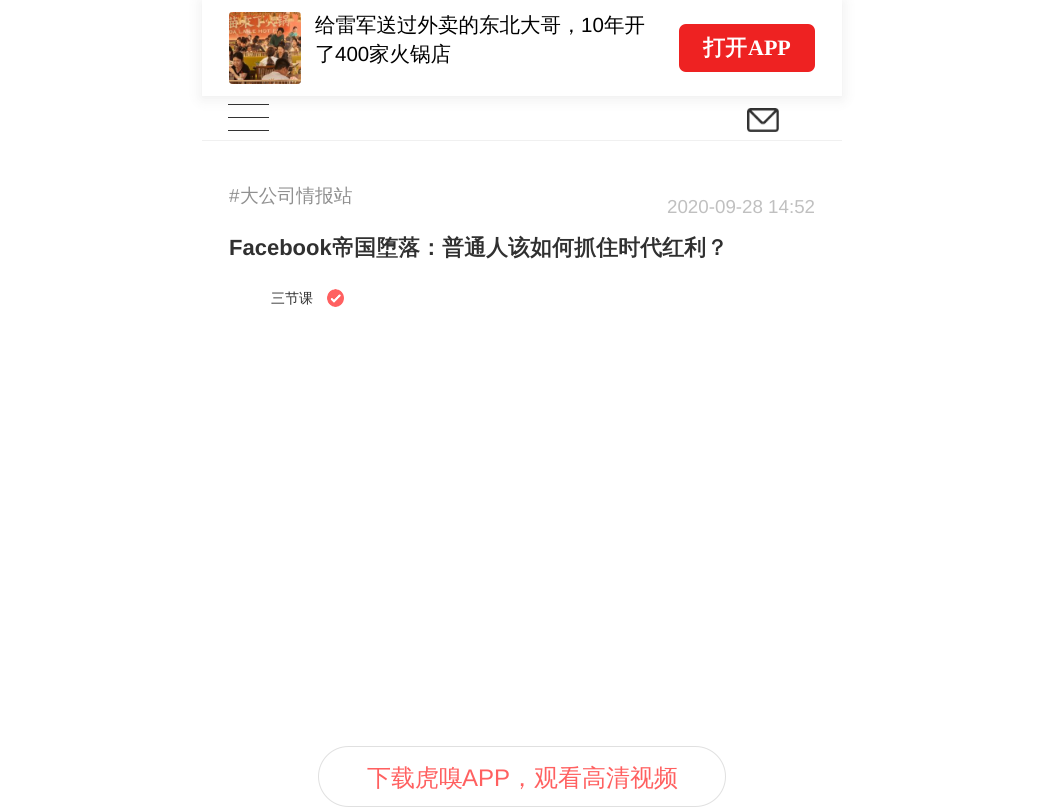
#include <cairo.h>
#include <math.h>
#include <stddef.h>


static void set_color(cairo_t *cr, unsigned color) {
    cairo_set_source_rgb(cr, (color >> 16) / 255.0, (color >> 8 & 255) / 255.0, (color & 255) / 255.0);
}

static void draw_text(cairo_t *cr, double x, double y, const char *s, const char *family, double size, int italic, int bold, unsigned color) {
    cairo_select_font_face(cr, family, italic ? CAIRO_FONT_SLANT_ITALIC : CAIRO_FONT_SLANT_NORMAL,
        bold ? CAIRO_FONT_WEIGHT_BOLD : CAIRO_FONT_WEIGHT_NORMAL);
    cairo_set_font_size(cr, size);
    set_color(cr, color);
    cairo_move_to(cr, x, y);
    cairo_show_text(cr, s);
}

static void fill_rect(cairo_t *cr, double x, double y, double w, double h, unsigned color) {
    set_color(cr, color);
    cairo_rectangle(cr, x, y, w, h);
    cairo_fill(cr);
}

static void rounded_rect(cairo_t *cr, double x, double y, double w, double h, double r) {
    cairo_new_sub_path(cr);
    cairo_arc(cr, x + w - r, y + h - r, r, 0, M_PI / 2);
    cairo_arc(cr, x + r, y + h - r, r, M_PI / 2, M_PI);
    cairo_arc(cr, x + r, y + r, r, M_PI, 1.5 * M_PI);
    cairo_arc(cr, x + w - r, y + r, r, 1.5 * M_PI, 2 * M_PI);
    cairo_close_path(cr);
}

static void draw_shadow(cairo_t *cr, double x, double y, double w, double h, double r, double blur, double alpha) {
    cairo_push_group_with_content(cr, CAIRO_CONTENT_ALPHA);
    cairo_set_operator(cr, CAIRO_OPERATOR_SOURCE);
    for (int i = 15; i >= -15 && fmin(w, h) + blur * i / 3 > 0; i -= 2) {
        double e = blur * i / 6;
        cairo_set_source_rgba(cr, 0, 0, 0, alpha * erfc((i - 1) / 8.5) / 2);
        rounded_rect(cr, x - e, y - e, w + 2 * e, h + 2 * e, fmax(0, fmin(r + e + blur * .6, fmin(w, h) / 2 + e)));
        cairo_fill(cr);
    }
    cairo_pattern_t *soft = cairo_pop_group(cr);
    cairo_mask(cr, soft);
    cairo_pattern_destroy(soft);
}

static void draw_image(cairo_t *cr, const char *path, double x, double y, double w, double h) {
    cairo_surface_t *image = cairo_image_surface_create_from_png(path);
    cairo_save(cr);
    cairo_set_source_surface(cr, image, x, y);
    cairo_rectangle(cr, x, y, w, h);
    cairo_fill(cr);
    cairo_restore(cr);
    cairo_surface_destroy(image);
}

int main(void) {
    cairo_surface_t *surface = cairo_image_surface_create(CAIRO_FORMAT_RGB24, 1044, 807);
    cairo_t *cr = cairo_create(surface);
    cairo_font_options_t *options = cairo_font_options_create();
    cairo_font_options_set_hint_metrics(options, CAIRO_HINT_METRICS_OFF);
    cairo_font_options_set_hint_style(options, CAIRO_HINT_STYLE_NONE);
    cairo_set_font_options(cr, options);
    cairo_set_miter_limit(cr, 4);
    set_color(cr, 0xFFFFFF);
    cairo_paint(cr);
    fill_rect(cr, 228, 104, 41, 1, 0x333333);
    fill_rect(cr, 228, 117, 41, 1, 0x333333);
    draw_image(cr, "assets/img2.png", 747, 108, 32, 24);
    cairo_save(cr);
    cairo_set_fill_rule(cr, CAIRO_FILL_RULE_EVEN_ODD);
    cairo_new_path(cr);
    cairo_move_to(cr, 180, 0);
    cairo_line_to(cr, 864, 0);
    cairo_line_to(cr, 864, 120);
    cairo_line_to(cr, 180, 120);
    cairo_close_path(cr);
    cairo_move_to(cr, 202, 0);
    cairo_line_to(cr, 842, 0);
    cairo_line_to(cr, 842, 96);
    cairo_line_to(cr, 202, 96);
    cairo_close_path(cr);
    cairo_clip(cr);
    set_color(cr, 0x303030);
    draw_shadow(cr, 202, 2, 640, 96, 0, 7, 0.1);
    cairo_restore(cr);
    draw_image(cr, "assets/img1.png", 229, 12, 72, 72);
    draw_text(cr, 315, 32, "给雷军送过外卖的东北大哥，", "WenQuanYi Zen Hei Medium", 20.5, 0, 0, 0x000000);
    draw_text(cr, 581, 32, "10", "Liberation Sans", 20.5, 0, 0, 0x000000);
    draw_text(cr, 604, 32, "年开", "WenQuanYi Zen Hei Medium", 20.5, 0, 0, 0x000000);
    draw_text(cr, 315, 61, "了", "WenQuanYi Zen Hei Medium", 20.5, 0, 0, 0x000000);
    draw_text(cr, 335, 61, "400", "Liberation Sans", 20.5, 0, 0, 0x000000);
    draw_text(cr, 369, 61, "家火锅店", "WenQuanYi Zen Hei Medium", 20.5, 0, 0, 0x000000);
    set_color(cr, 0xEE2222);
    rounded_rect(cr, 679, 24, 136, 48, 7);
    cairo_fill(cr);
    draw_text(cr, 703, 55, "打开", "WenQuanYi Zen Hei", 22, 0, 1, 0xFFFFFF);
    draw_text(cr, 748, 55, "APP", "Liberation Serif", 22, 0, 1, 0xFFFFFF);
    fill_rect(cr, 202, 140, 640, 1, 0xF0F0F0);
    fill_rect(cr, 228, 130, 41, 1, 0x333333);
    draw_text(cr, 229, 202, "#", "Liberation Sans", 18.75, 0, 0, 0x909090);
    draw_text(cr, 240, 202, "大公司情报站", "WenQuanYi Zen Hei Medium", 18.75, 0, 0, 0x909090);
    draw_text(cr, 667, 213, "2020-09-28 14:52", "Liberation Sans", 18.75, 0, 0, 0xC0C0C0);
    draw_text(cr, 229, 255, "Facebook", "Liberation Sans", 22, 0, 1, 0x303030);
    draw_text(cr, 332, 255, "帝国堕落：普通人该如何抓住时代红利？", "WenQuanYi Zen Hei", 22, 0, 1, 0x303030);
    draw_text(cr, 271, 303, "三节课", "WenQuanYi Zen Hei Medium", 14, 0, 0, 0x303030);
    draw_image(cr, "assets/img3.png", 327, 289, 17, 18);
    rounded_rect(cr, 318.5, 746.5, 407, 60, 30);
    set_color(cr, 0xE0E0E0);
    cairo_set_line_width(cr, 1);
    cairo_stroke(cr);
    draw_text(cr, 367, 786, "下载虎嗅", "WenQuanYi Zen Hei Medium", 24, 0, 0, 0xFF6060);
    draw_text(cr, 462, 786, "APP", "Liberation Sans", 24, 0, 0, 0xFF6060);
    draw_text(cr, 510, 786, "，观看高清视频", "WenQuanYi Zen Hei Medium", 24, 0, 0, 0xFF6060);
    cairo_surface_write_to_png(surface, "output.png");
    cairo_font_options_destroy(options);
    cairo_destroy(cr);
    cairo_surface_destroy(surface);
    return 0;
}
